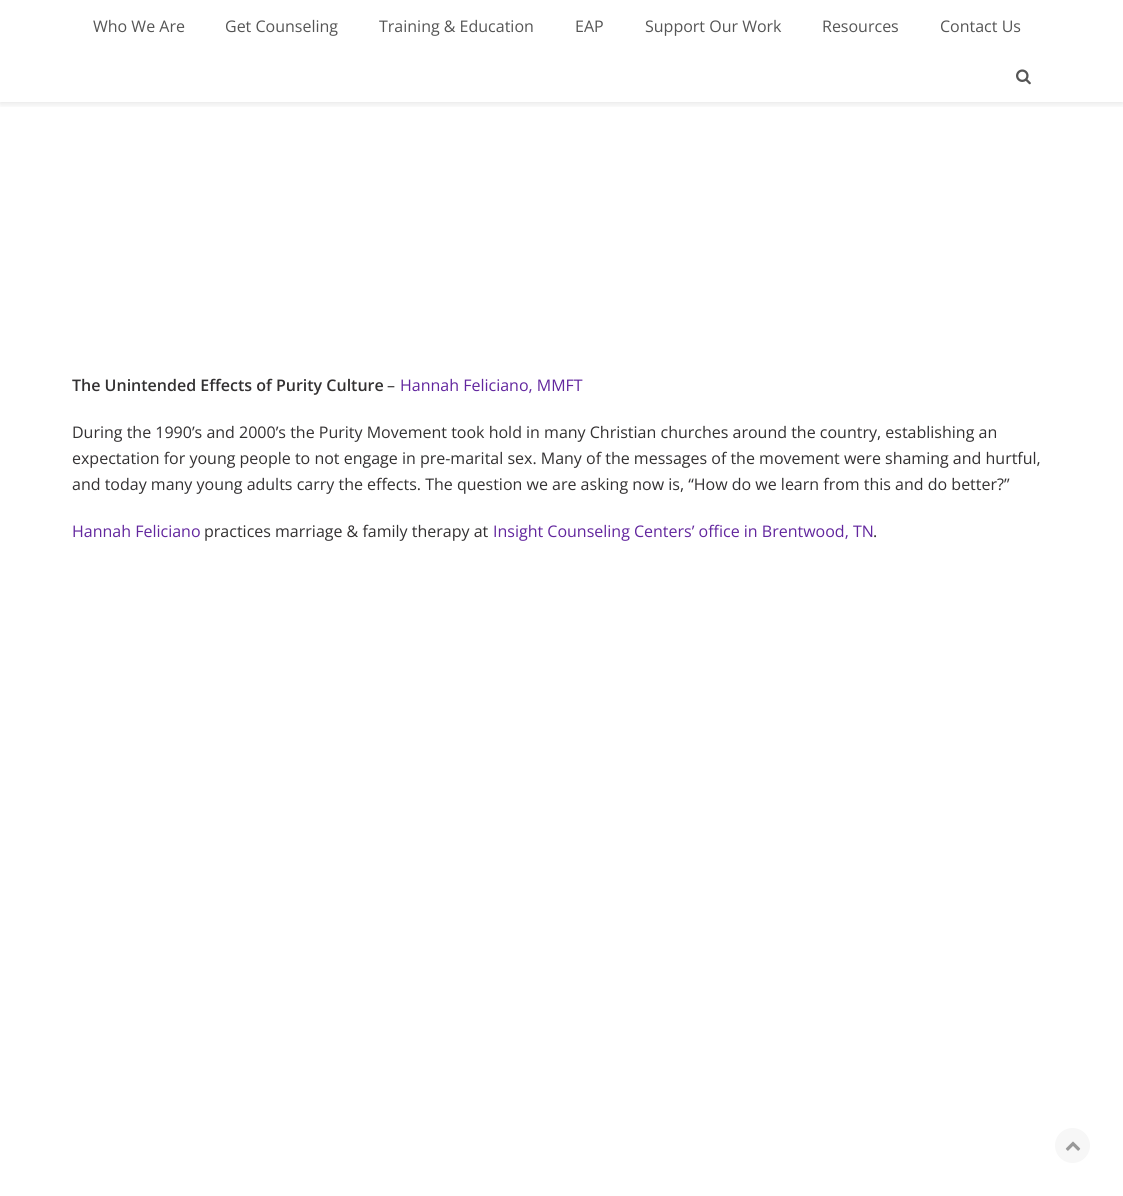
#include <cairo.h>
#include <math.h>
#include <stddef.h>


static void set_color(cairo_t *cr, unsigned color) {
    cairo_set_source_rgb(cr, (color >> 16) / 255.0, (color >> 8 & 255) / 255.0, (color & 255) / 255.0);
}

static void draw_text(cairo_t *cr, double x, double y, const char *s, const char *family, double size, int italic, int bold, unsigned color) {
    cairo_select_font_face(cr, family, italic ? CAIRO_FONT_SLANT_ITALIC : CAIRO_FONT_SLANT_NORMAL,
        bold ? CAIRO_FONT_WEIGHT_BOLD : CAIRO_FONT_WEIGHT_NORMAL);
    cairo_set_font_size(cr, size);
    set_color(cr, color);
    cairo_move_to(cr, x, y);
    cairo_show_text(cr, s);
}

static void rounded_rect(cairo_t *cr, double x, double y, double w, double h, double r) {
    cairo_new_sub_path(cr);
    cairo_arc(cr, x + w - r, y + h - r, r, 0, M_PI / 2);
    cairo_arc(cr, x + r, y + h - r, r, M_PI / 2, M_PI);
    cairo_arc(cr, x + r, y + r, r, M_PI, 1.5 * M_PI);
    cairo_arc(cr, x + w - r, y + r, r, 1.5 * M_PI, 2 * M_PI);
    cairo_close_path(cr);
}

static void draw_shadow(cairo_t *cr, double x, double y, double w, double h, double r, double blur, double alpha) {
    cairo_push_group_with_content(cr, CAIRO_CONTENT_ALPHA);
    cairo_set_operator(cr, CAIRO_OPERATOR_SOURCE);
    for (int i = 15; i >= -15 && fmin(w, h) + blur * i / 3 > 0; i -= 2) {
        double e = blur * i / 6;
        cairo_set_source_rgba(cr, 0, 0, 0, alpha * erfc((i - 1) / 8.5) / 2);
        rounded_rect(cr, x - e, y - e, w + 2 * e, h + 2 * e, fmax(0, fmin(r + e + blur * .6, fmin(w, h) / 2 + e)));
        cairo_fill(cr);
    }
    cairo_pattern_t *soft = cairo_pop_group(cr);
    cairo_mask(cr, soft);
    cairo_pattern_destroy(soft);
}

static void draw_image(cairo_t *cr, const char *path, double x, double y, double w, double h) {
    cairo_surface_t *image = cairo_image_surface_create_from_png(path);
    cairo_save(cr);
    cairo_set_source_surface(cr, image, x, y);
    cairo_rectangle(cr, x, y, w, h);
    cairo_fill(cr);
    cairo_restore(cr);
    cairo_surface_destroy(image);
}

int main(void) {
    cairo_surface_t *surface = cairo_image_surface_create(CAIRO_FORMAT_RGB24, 1123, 1196);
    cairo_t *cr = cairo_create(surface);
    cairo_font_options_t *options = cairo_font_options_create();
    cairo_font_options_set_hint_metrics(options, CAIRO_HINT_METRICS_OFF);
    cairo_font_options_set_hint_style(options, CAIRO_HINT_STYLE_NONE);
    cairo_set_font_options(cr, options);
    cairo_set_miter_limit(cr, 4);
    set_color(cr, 0xFFFFFF);
    cairo_paint(cr);
    cairo_save(cr);
    cairo_rectangle(cr, 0, 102, 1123, 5);
    cairo_clip(cr);
    set_color(cr, 0x000000);
    draw_shadow(cr, 0, 2, 1123, 102, 0, 3.5, 0.1);
    cairo_restore(cr);
    draw_text(cr, 93, 32, "Who We Are", "Open Sans", 16, 0, 0, 0x555555);
    draw_text(cr, 225, 32, "Get Counseling", "Open Sans", 16, 0, 0, 0x555555);
    draw_text(cr, 379, 32, "Training & Education", "Open Sans", 16, 0, 0, 0x555555);
    draw_text(cr, 575, 32, "EAP", "Open Sans", 16, 0, 0, 0x555555);
    draw_text(cr, 645, 32, "Support Our Work", "Open Sans", 16, 0, 0, 0x555555);
    draw_text(cr, 822, 32, "Resources", "Open Sans", 16, 0, 0, 0x555555);
    draw_text(cr, 940, 32, "Contact Us", "Open Sans", 16, 0, 0, 0x555555);
    draw_image(cr, "assets/img1.png", 1016, 69, 15, 16);
    draw_text(cr, 72, 391, "The Unintended Effects of Purity Culture", "Open Sans SemiBold", 16, 0, 0, 0x333132);
    draw_text(cr, 387, 391, "–", "Open Sans", 16, 0, 0, 0x333132);
    draw_text(cr, 400, 391, "Hannah Feliciano, MMFT", "Open Sans", 16, 0, 0, 0x62269E);
    draw_text(cr, 72, 438, "During the 1990’s and 2000’s the Purity Movement took hold in many Christian churches around the country, establishing an", "Open Sans", 16, 0, 0, 0x333132);
    draw_text(cr, 72, 464, "expectation for young people to not engage in pre-marital sex. Many of the messages of the movement were shaming and hurtful,", "Open Sans", 16, 0, 0, 0x333132);
    draw_text(cr, 72, 490, "and today many young adults carry the effects. The question we are asking now is, “How do we learn from this and do better?”", "Open Sans", 16, 0, 0, 0x333132);
    draw_text(cr, 72, 537, "Hannah Feliciano", "Open Sans", 16, 0, 0, 0x62269E);
    draw_text(cr, 204, 537, "practices marriage & family therapy at", "Open Sans", 16, 0, 0, 0x333132);
    draw_text(cr, 493, 537, "Insight Counseling Centers’ office in Brentwood, TN", "Open Sans", 16, 0, 0, 0x62269E);
    draw_text(cr, 873, 537, ".", "Open Sans", 16, 0, 0, 0x333132);
    set_color(cr, 0xF7F7F7);
    cairo_new_path(cr);
    cairo_arc(cr, 1072.5, 1145.5, 19, 0, 2 * M_PI);
    cairo_fill_preserve(cr);
    set_color(cr, 0xFFFFFF);
    cairo_set_line_width(cr, 3);
    cairo_stroke(cr);
    draw_image(cr, "assets/img2.png", 1065, 1141, 16, 10);
    cairo_surface_write_to_png(surface, "output.png");
    cairo_font_options_destroy(options);
    cairo_destroy(cr);
    cairo_surface_destroy(surface);
    return 0;
}
